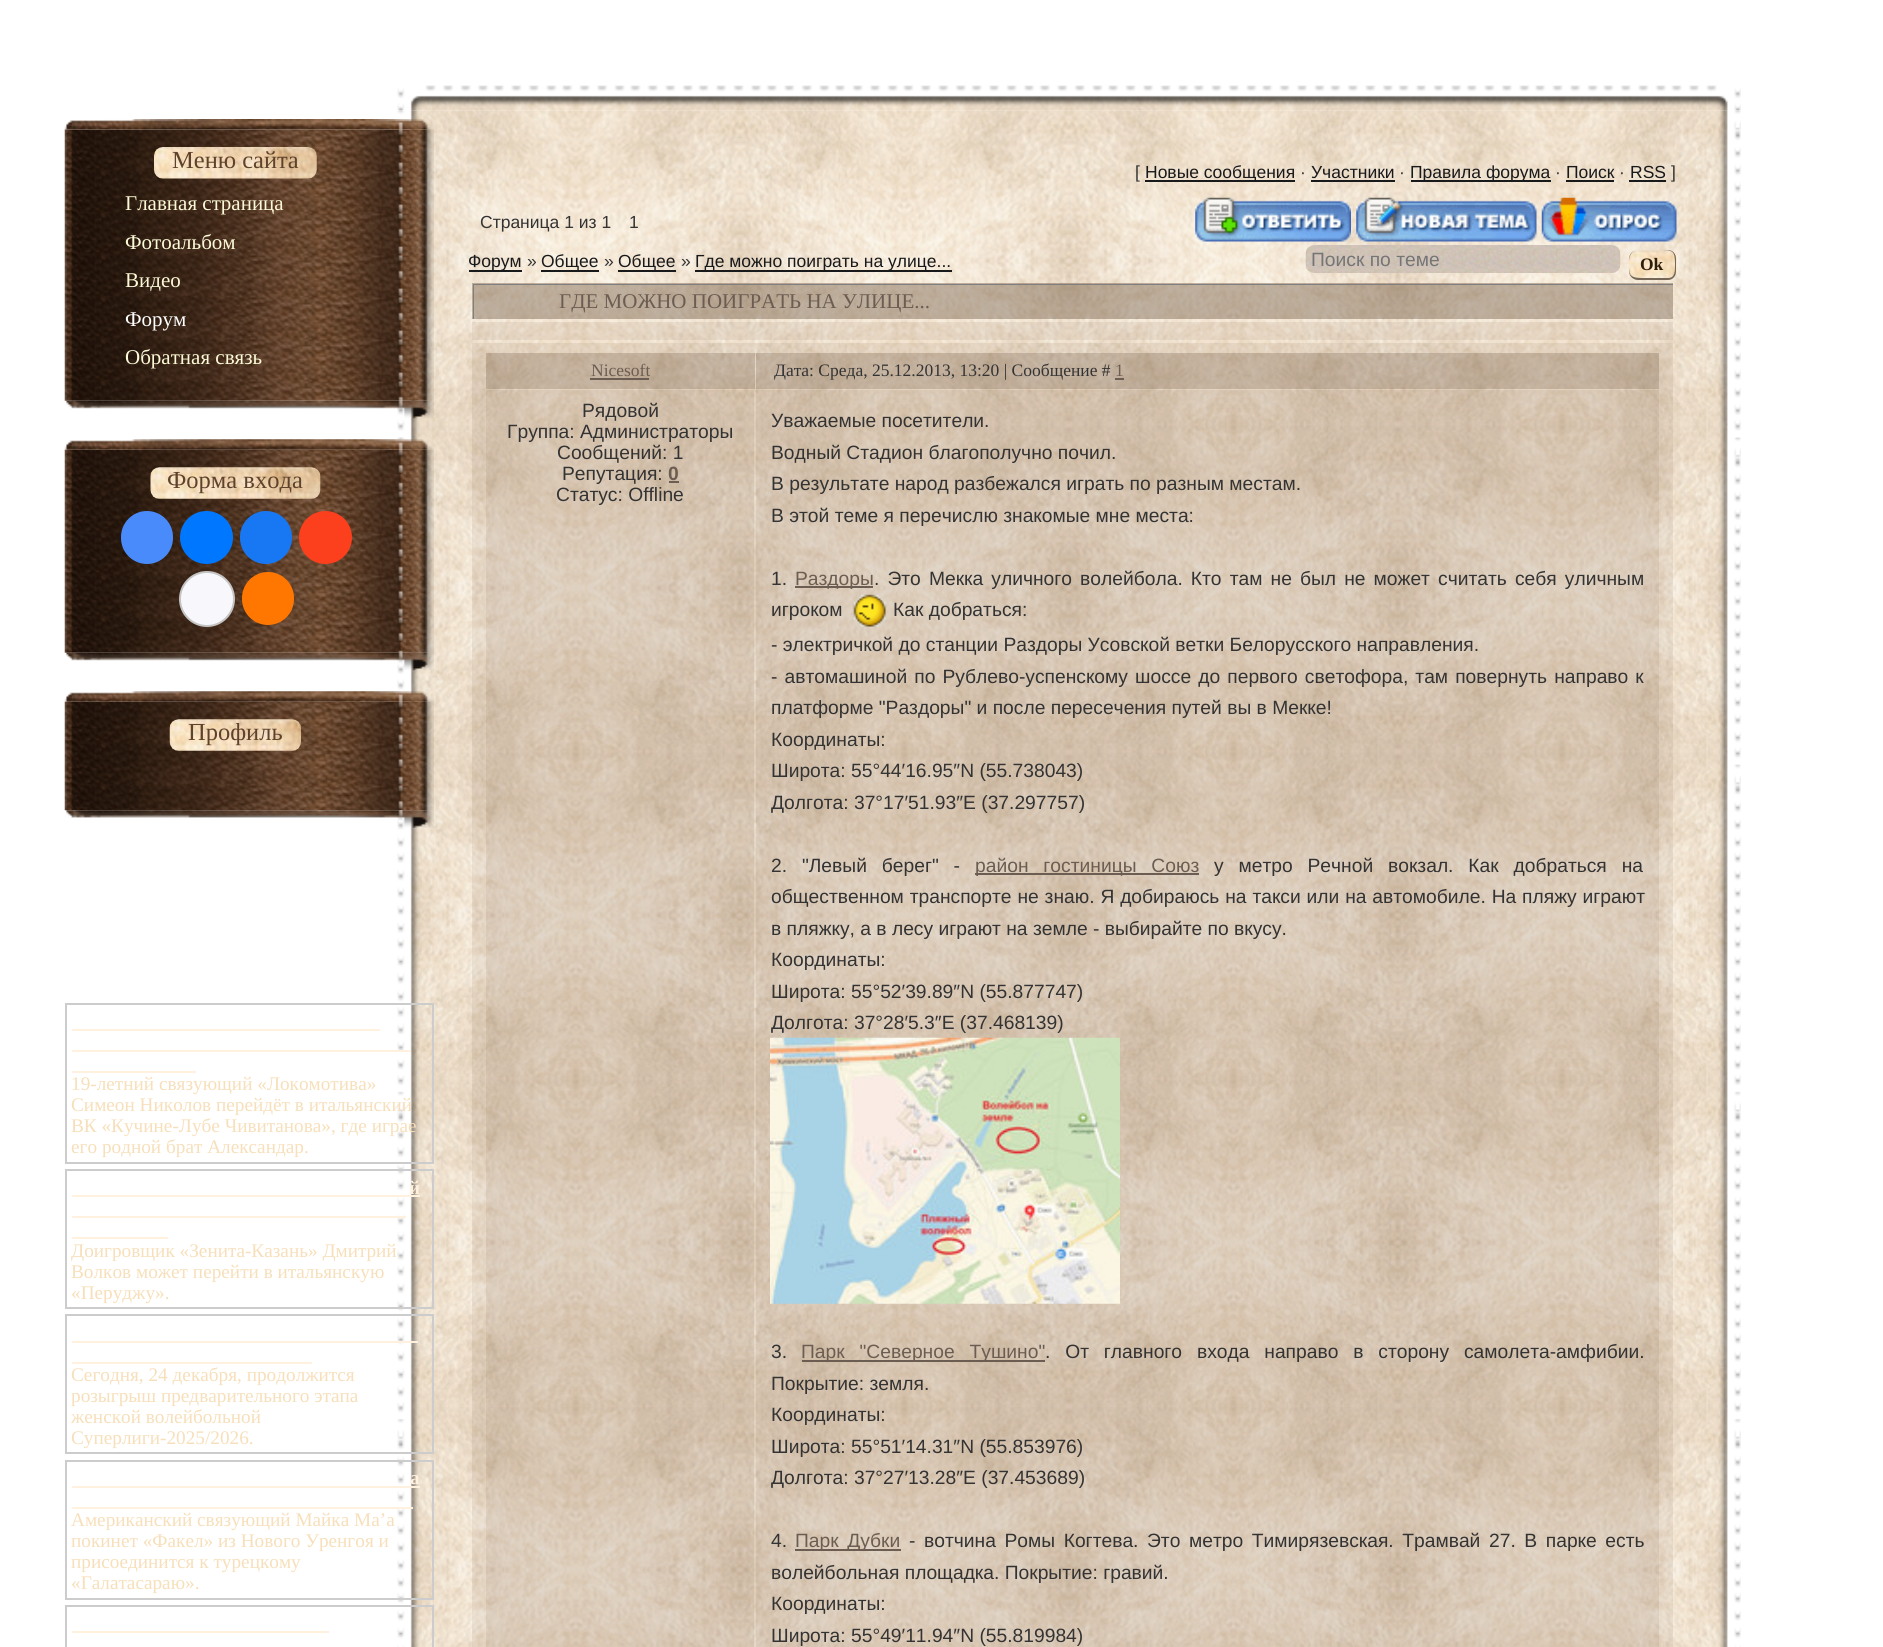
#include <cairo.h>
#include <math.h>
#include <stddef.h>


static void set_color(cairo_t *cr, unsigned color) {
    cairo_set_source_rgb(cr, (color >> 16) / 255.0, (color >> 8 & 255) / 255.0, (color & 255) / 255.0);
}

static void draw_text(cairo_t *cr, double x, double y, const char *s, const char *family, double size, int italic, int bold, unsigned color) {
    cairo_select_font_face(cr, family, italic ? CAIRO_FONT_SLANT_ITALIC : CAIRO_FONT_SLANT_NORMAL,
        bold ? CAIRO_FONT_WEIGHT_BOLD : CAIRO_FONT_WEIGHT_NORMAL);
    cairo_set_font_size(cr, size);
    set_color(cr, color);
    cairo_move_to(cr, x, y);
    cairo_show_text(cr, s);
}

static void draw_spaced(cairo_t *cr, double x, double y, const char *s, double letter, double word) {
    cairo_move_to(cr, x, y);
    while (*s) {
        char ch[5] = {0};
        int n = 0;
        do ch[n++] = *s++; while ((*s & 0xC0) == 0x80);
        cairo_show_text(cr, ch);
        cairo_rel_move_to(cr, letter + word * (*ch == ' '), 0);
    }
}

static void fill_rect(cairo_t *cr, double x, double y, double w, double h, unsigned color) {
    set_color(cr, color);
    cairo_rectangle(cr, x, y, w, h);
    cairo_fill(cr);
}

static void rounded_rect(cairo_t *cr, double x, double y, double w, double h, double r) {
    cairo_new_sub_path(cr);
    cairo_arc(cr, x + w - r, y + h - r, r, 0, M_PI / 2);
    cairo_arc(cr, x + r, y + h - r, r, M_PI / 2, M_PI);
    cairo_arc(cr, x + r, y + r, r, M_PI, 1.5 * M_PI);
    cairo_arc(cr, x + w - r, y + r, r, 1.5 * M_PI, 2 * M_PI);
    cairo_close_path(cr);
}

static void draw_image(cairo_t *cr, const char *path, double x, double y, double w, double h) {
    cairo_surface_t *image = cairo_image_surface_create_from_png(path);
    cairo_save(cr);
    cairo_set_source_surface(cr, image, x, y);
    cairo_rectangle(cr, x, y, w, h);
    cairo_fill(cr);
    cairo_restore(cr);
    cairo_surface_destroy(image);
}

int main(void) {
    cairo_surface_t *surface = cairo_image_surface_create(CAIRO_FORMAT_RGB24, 1883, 1647);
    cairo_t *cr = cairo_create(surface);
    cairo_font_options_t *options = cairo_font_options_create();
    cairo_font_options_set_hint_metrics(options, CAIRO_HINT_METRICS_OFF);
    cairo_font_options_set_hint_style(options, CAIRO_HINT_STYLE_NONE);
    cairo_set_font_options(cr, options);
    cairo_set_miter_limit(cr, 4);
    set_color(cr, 0xFFFFFF);
    cairo_paint(cr);
    draw_image(cr, "assets/img2.png", 397, 110, 1344, 1537);
    draw_image(cr, "assets/img1.png", 397, 85, 1344, 26);
    draw_image(cr, "assets/img4.png", 64, 129, 370, 272);
    draw_image(cr, "assets/img3.png", 64, 119, 370, 11);
    draw_image(cr, "assets/img5.png", 154, 147, 163, 32);
    draw_text(cr, 172, 168, "Меню сайта", "Liberation Serif", 24.5, 0, 0, 0x5F422B);
    draw_text(cr, 125, 210, "Главная страница", "Liberation Serif", 21, 0, 0, 0xFCFAD7);
    draw_text(cr, 125, 249, "Фотоальбом", "Liberation Serif", 21, 0, 0, 0xFCFAD7);
    draw_text(cr, 125, 287, "Видео", "Liberation Serif", 21, 0, 0, 0xFCFAD7);
    draw_text(cr, 125, 326, "Форум", "Liberation Serif", 21, 0, 0, 0xFFFFFF);
    draw_text(cr, 125, 364, "Обратная связь", "Liberation Serif", 21, 0, 0, 0xFCFAD7);
    draw_image(cr, "assets/img6.png", 66, 400, 368, 19);
    draw_image(cr, "assets/img8.png", 64, 449, 370, 204);
    draw_image(cr, "assets/img7.png", 64, 439, 370, 11);
    draw_image(cr, "assets/img9.png", 150, 467, 171, 32);
    draw_text(cr, 167, 488, "Форма входа", "Liberation Serif", 24.5, 0, 0, 0x5F422B);
    set_color(cr, 0x498BFA);
    rounded_rect(cr, 121, 511, 52, 53, 26);
    cairo_fill(cr);
    set_color(cr, 0x0077FF);
    cairo_arc(cr, 206.5, 537.5, 26.5, 0, 2 * M_PI);
    cairo_fill(cr);
    set_color(cr, 0x1877F2);
    rounded_rect(cr, 240, 511, 52, 53, 26);
    cairo_fill(cr);
    set_color(cr, 0xFC3F1D);
    cairo_arc(cr, 325.5, 537.5, 26.5, 0, 2 * M_PI);
    cairo_fill(cr);
    set_color(cr, 0xF8F8FC);
    cairo_arc(cr, 207, 599, 27, 0, 2 * M_PI);
    cairo_fill_preserve(cr);
    set_color(cr, 0xC4C4C4);
    cairo_stroke(cr);
    set_color(cr, 0xFF7700);
    rounded_rect(cr, 242, 572, 52, 53, 26);
    cairo_fill(cr);
    draw_image(cr, "assets/img10.png", 66, 652, 368, 19);
    draw_image(cr, "assets/img12.png", 64, 701, 370, 110);
    draw_image(cr, "assets/img11.png", 64, 691, 370, 11);
    draw_image(cr, "assets/img13.png", 169, 719, 132, 32);
    draw_text(cr, 188, 740, "Профиль", "Liberation Serif", 24.5, 0, 0, 0x5F422B);
    draw_image(cr, "assets/img14.png", 66, 810, 368, 18);
    cairo_rectangle(cr, 66, 1004, 367, 159);
    set_color(cr, 0xCCCCCC);
    cairo_stroke(cr);
    fill_rect(cr, 72, 1029, 308, 2, 0xFFF1DD);
    fill_rect(cr, 72, 1050, 339, 2, 0xFFF1DD);
    fill_rect(cr, 72, 1071, 124, 2, 0xFFF1DD);
    draw_text(cr, 71, 1090, "19-летний связующий «Локомотива»", "Liberation Serif", 19.25, 0, 0, 0xF7DFBA);
    draw_text(cr, 71, 1111, "Симеон Николов перейдёт в итальянский", "Liberation Serif", 19.25, 0, 0, 0xF7DFBA);
    draw_text(cr, 71, 1132, "ВК «Кучине-Лубе Чивитанова», где играе", "Liberation Serif", 19.25, 0, 0, 0xF7DFBA);
    draw_text(cr, 71, 1153, "его родной брат Александар.", "Liberation Serif", 19.25, 0, 0, 0xF7DFBA);
    cairo_rectangle(cr, 66, 1170, 367, 138);
    set_color(cr, 0xCCCCCC);
    cairo_stroke(cr);
    draw_text(cr, 409, 1194, "й", "Liberation Serif", 19.25, 0, 1, 0xFFF1DD);
    fill_rect(cr, 72, 1195, 348, 2, 0xFFF1DD);
    fill_rect(cr, 72, 1216, 334, 2, 0xFFF1DD);
    fill_rect(cr, 72, 1237, 96, 2, 0xFFF1DD);
    draw_text(cr, 71, 1257, "Доигровщик «Зенита-Казань» Дмитрий", "Liberation Serif", 19.25, 0, 0, 0xF7DFBA);
    draw_text(cr, 71, 1278, "Волков может перейти в итальянскую", "Liberation Serif", 19.25, 0, 0, 0xF7DFBA);
    draw_text(cr, 71, 1299, "«Перуджу».", "Liberation Serif", 19.25, 0, 0, 0xF7DFBA);
    cairo_rectangle(cr, 66, 1315, 367, 138);
    set_color(cr, 0xCCCCCC);
    cairo_stroke(cr);
    fill_rect(cr, 72, 1341, 346, 2, 0xFFF1DD);
    fill_rect(cr, 72, 1362, 240, 2, 0xFFF1DD);
    draw_text(cr, 71, 1381, "Сегодня, 24 декабря, продолжится", "Liberation Serif", 19.25, 0, 0, 0xF7DFBA);
    draw_text(cr, 71, 1402, "розыгрыш предварительного этапа", "Liberation Serif", 19.25, 0, 0, 0xF7DFBA);
    draw_text(cr, 71, 1423, "женской волейбольной", "Liberation Serif", 19.25, 0, 0, 0xF7DFBA);
    draw_text(cr, 71, 1444, "Суперлиги-2025/2026.", "Liberation Serif", 19.25, 0, 0, 0xF7DFBA);
    cairo_rectangle(cr, 66, 1461, 367, 138);
    set_color(cr, 0xCCCCCC);
    cairo_stroke(cr);
    draw_text(cr, 410, 1484, "а", "Liberation Serif", 19.25, 0, 1, 0xFFF1DD);
    fill_rect(cr, 72, 1486, 348, 2, 0xFFF1DD);
    fill_rect(cr, 72, 1507, 341, 2, 0xFFF1DD);
    draw_text(cr, 71, 1526, "Американский связующий Майка Ма’а", "Liberation Serif", 19.25, 0, 0, 0xF7DFBA);
    draw_text(cr, 71, 1547, "покинет «Факел» из Нового Уренгоя и", "Liberation Serif", 19.25, 0, 0, 0xF7DFBA);
    draw_text(cr, 71, 1568, "присоединится к турецкому", "Liberation Serif", 19.25, 0, 0, 0xF7DFBA);
    draw_text(cr, 71, 1589, "«Галатасараю».", "Liberation Serif", 19.25, 0, 0, 0xF7DFBA);
    cairo_rectangle(cr, 66, 1606, 367, 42);
    set_color(cr, 0xCCCCCC);
    cairo_stroke(cr);
    fill_rect(cr, 72, 1631, 257, 2, 0xFFF1DD);
    draw_text(cr, 1135, 178, "[", "Liberation Sans", 17.5, 0, 0, 0x333333);
    fill_rect(cr, 1145, 180, 150, 2, 0x18191B);
    draw_text(cr, 1145, 178, "Новые сообщения", "Liberation Sans", 17.5, 0, 0, 0x18191B);
    draw_text(cr, 1300, 178, "·", "Liberation Sans", 17.5, 0, 0, 0x333333);
    draw_text(cr, 1311, 178, "Участники", "Liberation Sans", 17.5, 0, 0, 0x18191B);
    fill_rect(cr, 1311, 180, 84, 2, 0x18191B);
    draw_text(cr, 1399, 178, "·", "Liberation Sans", 17.5, 0, 0, 0x333333);
    fill_rect(cr, 1411, 180, 140, 2, 0x18191B);
    draw_text(cr, 1410, 178, "Правила форума", "Liberation Sans", 17.5, 0, 0, 0x18191B);
    draw_text(cr, 1555, 178, "·", "Liberation Sans", 17.5, 0, 0, 0x333333);
    draw_text(cr, 1566, 178, "Поиск", "Liberation Sans", 17.5, 0, 0, 0x18191B);
    fill_rect(cr, 1566, 180, 48, 2, 0x18191B);
    draw_text(cr, 1619, 178, "·", "Liberation Sans", 17.5, 0, 0, 0x333333);
    draw_text(cr, 1630, 178, "RSS", "Liberation Sans", 17.5, 0, 0, 0x18191B);
    fill_rect(cr, 1629, 180, 37, 2, 0x18191B);
    draw_text(cr, 1671, 178, "]", "Liberation Sans", 17.5, 0, 0, 0x333333);
    draw_text(cr, 480, 228, "Страница 1 из 1", "Liberation Sans", 17.5, 0, 0, 0x333333);
    draw_text(cr, 629, 228, "1", "Liberation Sans", 17.5, 0, 0, 0x333333);
    draw_image(cr, "assets/img15.png", 1195, 197, 156, 45);
    draw_image(cr, "assets/img16.png", 1356, 197, 181, 45);
    draw_image(cr, "assets/img17.png", 1541, 197, 136, 45);
    fill_rect(cr, 469, 270, 53, 2, 0x18191B);
    draw_text(cr, 468, 267, "Форум", "Liberation Sans", 17.5, 0, 0, 0x18191B);
    draw_text(cr, 527, 267, "»", "Liberation Sans", 17.5, 0, 0, 0x333333);
    fill_rect(cr, 541, 270, 58, 2, 0x18191B);
    draw_text(cr, 541, 267, "Общее", "Liberation Sans", 17.5, 0, 0, 0x18191B);
    draw_text(cr, 604, 267, "»", "Liberation Sans", 17.5, 0, 0, 0x333333);
    fill_rect(cr, 618, 270, 58, 2, 0x18191B);
    draw_text(cr, 618, 267, "Общее", "Liberation Sans", 17.5, 0, 0, 0x18191B);
    draw_text(cr, 681, 267, "»", "Liberation Sans", 17.5, 0, 0, 0x333333);
    fill_rect(cr, 695, 270, 257, 2, 0x18191B);
    draw_text(cr, 695, 267, "Где можно поиграть на улице...", "Liberation Sans", 17.5, 0, 0, 0x18191B);
    draw_image(cr, "assets/img18.png", 1305, 245, 316, 28);
    draw_text(cr, 1311, 266, "Поиск по теме", "Liberation Sans", 19.25, 0, 0, 0x757575);
    draw_image(cr, "assets/img19.png", 1629, 250, 48, 30);
    set_color(cr, 0x756859);
    cairo_set_fill_rule(cr, CAIRO_FILL_RULE_EVEN_ODD);
    cairo_new_path(cr);
    cairo_move_to(cr, 1638, 250);
    cairo_line_to(cr, 1668, 250);
    cairo_curve_to(cr, 1673, 250, 1676, 254, 1676, 259);
    cairo_line_to(cr, 1676, 271);
    cairo_curve_to(cr, 1676, 276, 1673, 280, 1668, 280);
    cairo_line_to(cr, 1638, 280);
    cairo_curve_to(cr, 1633, 280, 1629, 276, 1629, 271);
    cairo_line_to(cr, 1629, 259);
    cairo_curve_to(cr, 1629, 254, 1633, 250, 1638, 250);
    cairo_close_path(cr);
    cairo_move_to(cr, 1638, 250);
    cairo_line_to(cr, 1658, 250);
    cairo_curve_to(cr, 1673, 250, 1675, 250, 1675, 265);
    cairo_curve_to(cr, 1675, 271, 1675, 278, 1668, 278);
    cairo_line_to(cr, 1643, 278);
    cairo_curve_to(cr, 1628, 278, 1629, 274, 1629, 261);
    cairo_curve_to(cr, 1629, 256, 1632, 250, 1638, 250);
    cairo_close_path(cr);
    cairo_fill(cr);
    draw_text(cr, 1640, 270, "Ok", "Liberation Serif", 17.5, 0, 1, 0x2D1F0B);
    cairo_set_source_rgba(cr, 0.38, 0.278, 0.196, 0.38);
    cairo_rectangle(cr, 472, 283, 1201, 36);
    cairo_fill(cr);
    cairo_save(cr);
    cairo_set_fill_rule(cr, CAIRO_FILL_RULE_WINDING);
    cairo_rectangle(cr, 473, 284, 1200, 35);
    cairo_clip(cr);
    set_color(cr, 0x807E7E);
    cairo_set_fill_rule(cr, CAIRO_FILL_RULE_EVEN_ODD);
    cairo_new_path(cr);
    cairo_move_to(cr, 299, 110);
    cairo_line_to(cr, 1846, 110);
    cairo_line_to(cr, 1846, 492);
    cairo_line_to(cr, 299, 492);
    cairo_close_path(cr);
    cairo_move_to(cr, 474, 285);
    cairo_line_to(cr, 1675, 285);
    cairo_line_to(cr, 1675, 320);
    cairo_line_to(cr, 474, 320);
    cairo_close_path(cr);
    cairo_fill(cr);
    cairo_restore(cr);
    draw_text(cr, 559, 308, "ГДЕ МОЖНО ПОИГРАТЬ НА УЛИЦЕ...", "Liberation Serif", 21, 0, 0, 0x6C5D52);
    cairo_set_source_rgba(cr, 0.392, 0.263, 0.216, 0.09);
    cairo_rectangle(cr, 472, 322, 1201, 18);
    cairo_fill(cr);
    cairo_rectangle(cr, 472, 343, 1201, 1304);
    cairo_fill(cr);
    cairo_set_source_rgba(cr, 0.376, 0.278, 0.196, 0.24);
    cairo_rectangle(cr, 486, 353, 269, 36);
    cairo_fill(cr);
    draw_text(cr, 591, 376, "Nicesoft", "Liberation Serif", 17.5, 0, 0, 0x6C5D52);
    fill_rect(cr, 590, 378, 59, 2, 0x6C5D52);
    cairo_set_source_rgba(cr, 0.376, 0.278, 0.196, 0.24);
    cairo_rectangle(cr, 756, 353, 903, 36);
    cairo_fill(cr);
    draw_text(cr, 774, 376, "Дата: Среда, 25.12.2013, 13:20 | Сообщение #", "Liberation Serif", 17.5, 0, 0, 0x333333);
    draw_text(cr, 1115, 376, "1", "Liberation Serif", 17.5, 0, 0, 0x6C5D52);
    fill_rect(cr, 1115, 378, 9, 2, 0x6C5D52);
    cairo_set_source_rgba(cr, 0.392, 0.263, 0.216, 0.09);
    cairo_rectangle(cr, 486, 390, 268, 1257);
    cairo_fill(cr);
    draw_text(cr, 582, 417, "Рядовой", "Liberation Sans", 19.25, 0, 0, 0x333333);
    draw_text(cr, 507, 438, "Группа: Администраторы", "Liberation Sans", 19.25, 0, 0, 0x333333);
    draw_text(cr, 557, 459, "Сообщений: 1", "Liberation Sans", 19.25, 0, 0, 0x333333);
    draw_text(cr, 562, 480, "Репутация:", "Liberation Sans", 19.25, 0, 0, 0x333333);
    draw_text(cr, 668, 480, "0", "Liberation Sans", 19.25, 0, 1, 0x6C5D52);
    fill_rect(cr, 669, 481, 10, 2, 0x6C5D52);
    draw_text(cr, 556, 501, "Статус: Offline", "Liberation Sans", 19.25, 0, 0, 0x333333);
    cairo_set_source_rgba(cr, 0.392, 0.263, 0.216, 0.09);
    cairo_rectangle(cr, 756, 390, 903, 1257);
    cairo_fill(cr);
    draw_text(cr, 771, 427, "Уважаемые посетители.", "Liberation Sans", 19.25, 0, 0, 0x333333);
    draw_text(cr, 771, 459, "Водный Стадион благополучно почил.", "Liberation Sans", 19.25, 0, 0, 0x333333);
    draw_text(cr, 771, 490, "В результате народ разбежался играть по разным местам.", "Liberation Sans", 19.25, 0, 0, 0x333333);
    draw_text(cr, 771, 522, "В этой теме я перечислю знакомые мне места:", "Liberation Sans", 19.25, 0, 0, 0x333333);
    draw_text(cr, 771, 585, "1.", "Liberation Sans", 19.25, 0, 0, 0x333333);
    fill_rect(cr, 795, 586, 78, 2, 0x6C5D52);
    draw_text(cr, 795, 585, "Раздоры", "Liberation Sans", 19.25, 0, 0, 0x6C5D52);
    set_color(cr, 0x333333);
    draw_spaced(cr, 874, 585, ". Это Мекка уличного волейбола. Кто там не был не может считать себя уличным", 0, 2.75);
    draw_text(cr, 771, 616, "игроком", "Liberation Sans", 19.25, 0, 0, 0x333333);
    draw_image(cr, "assets/img20.png", 853, 594, 33, 33);
    draw_text(cr, 893, 616, "Как добраться:", "Liberation Sans", 19.25, 0, 0, 0x333333);
    draw_text(cr, 771, 651, "- электричкой до станции Раздоры Усовской ветки Белорусского направления.", "Liberation Sans", 19.25, 0, 0, 0x333333);
    draw_spaced(cr, 771, 683, "- автомашиной по Рублево-успенскому шоссе до первого светофора, там повернуть направо к", 0, 1.75);
    draw_text(cr, 771, 714, "платформе \"Раздоры\" и после пересечения путей вы в Мекке!", "Liberation Sans", 19.25, 0, 0, 0x333333);
    draw_text(cr, 771, 746, "Координаты:", "Liberation Sans", 19.25, 0, 0, 0x333333);
    draw_text(cr, 771, 777, "Широта: 55°44′16.95″N (55.738043)", "Liberation Sans", 19.25, 0, 0, 0x333333);
    draw_text(cr, 771, 809, "Долгота: 37°17′51.93″E (37.297757)", "Liberation Sans", 19.25, 0, 0, 0x333333);
    draw_spaced(cr, 771, 872, "2. \"Левый берег\" -", 0, 9.5);
    fill_rect(cr, 975, 873, 224, 2, 0x6C5D52);
    draw_spaced(cr, 975, 872, "район гостиницы Союз", 0, 9.5);
    set_color(cr, 0x333333);
    draw_spaced(cr, 1214, 872, "у метро Речной вокзал. Как добраться на", 0, 9.5);
    draw_spaced(cr, 771, 903, "общественном транспорте не знаю. Я добираюсь на такси или на автомобиле. На пляжу играют", 0, 0.5);
    draw_text(cr, 771, 935, "в пляжку, а в лесу играют на земле - выбирайте по вкусу.", "Liberation Sans", 19.25, 0, 0, 0x333333);
    draw_text(cr, 771, 966, "Координаты:", "Liberation Sans", 19.25, 0, 0, 0x333333);
    draw_text(cr, 771, 998, "Широта: 55°52′39.89″N (55.877747)", "Liberation Sans", 19.25, 0, 0, 0x333333);
    draw_text(cr, 771, 1029, "Долгота: 37°28′5.3″E (37.468139)", "Liberation Sans", 19.25, 0, 0, 0x333333);
    draw_image(cr, "assets/img21.png", 770, 1037, 350, 267);
    draw_text(cr, 771, 1358, "3.", "Liberation Sans", 19.25, 0, 0, 0x333333);
    fill_rect(cr, 802, 1360, 243, 2, 0x6C5D52);
    draw_spaced(cr, 801, 1358, "Парк \"Северное Тушино\"", 0, 9.5);
    set_color(cr, 0x333333);
    draw_spaced(cr, 1045, 1358, ". От главного входа направо в сторону самолета-амфибии.", 0, 9.5);
    draw_text(cr, 771, 1390, "Покрытие: земля.", "Liberation Sans", 19.25, 0, 0, 0x333333);
    draw_text(cr, 771, 1421, "Координаты:", "Liberation Sans", 19.25, 0, 0, 0x333333);
    draw_text(cr, 771, 1453, "Широта: 55°51′14.31″N (55.853976)", "Liberation Sans", 19.25, 0, 0, 0x333333);
    draw_text(cr, 771, 1484, "Долгота: 37°27′13.28″E (37.453689)", "Liberation Sans", 19.25, 0, 0, 0x333333);
    draw_text(cr, 771, 1547, "4.", "Liberation Sans", 19.25, 0, 0, 0x333333);
    fill_rect(cr, 795, 1549, 106, 2, 0x6C5D52);
    draw_spaced(cr, 795, 1547, "Парк Дубки", 0, 3.25);
    set_color(cr, 0x333333);
    draw_spaced(cr, 909, 1547, "- вотчина Ромы Когтева. Это метро Тимирязевская. Трамвай 27. В парке есть", 0, 3.25);
    draw_text(cr, 771, 1579, "волейбольная площадка. Покрытие: гравий.", "Liberation Sans", 19.25, 0, 0, 0x333333);
    draw_text(cr, 771, 1610, "Координаты:", "Liberation Sans", 19.25, 0, 0, 0x333333);
    draw_text(cr, 771, 1642, "Широта: 55°49′11.94″N (55.819984)", "Liberation Sans", 19.25, 0, 0, 0x333333);
    cairo_surface_write_to_png(surface, "output.png");
    cairo_font_options_destroy(options);
    cairo_destroy(cr);
    cairo_surface_destroy(surface);
    return 0;
}
